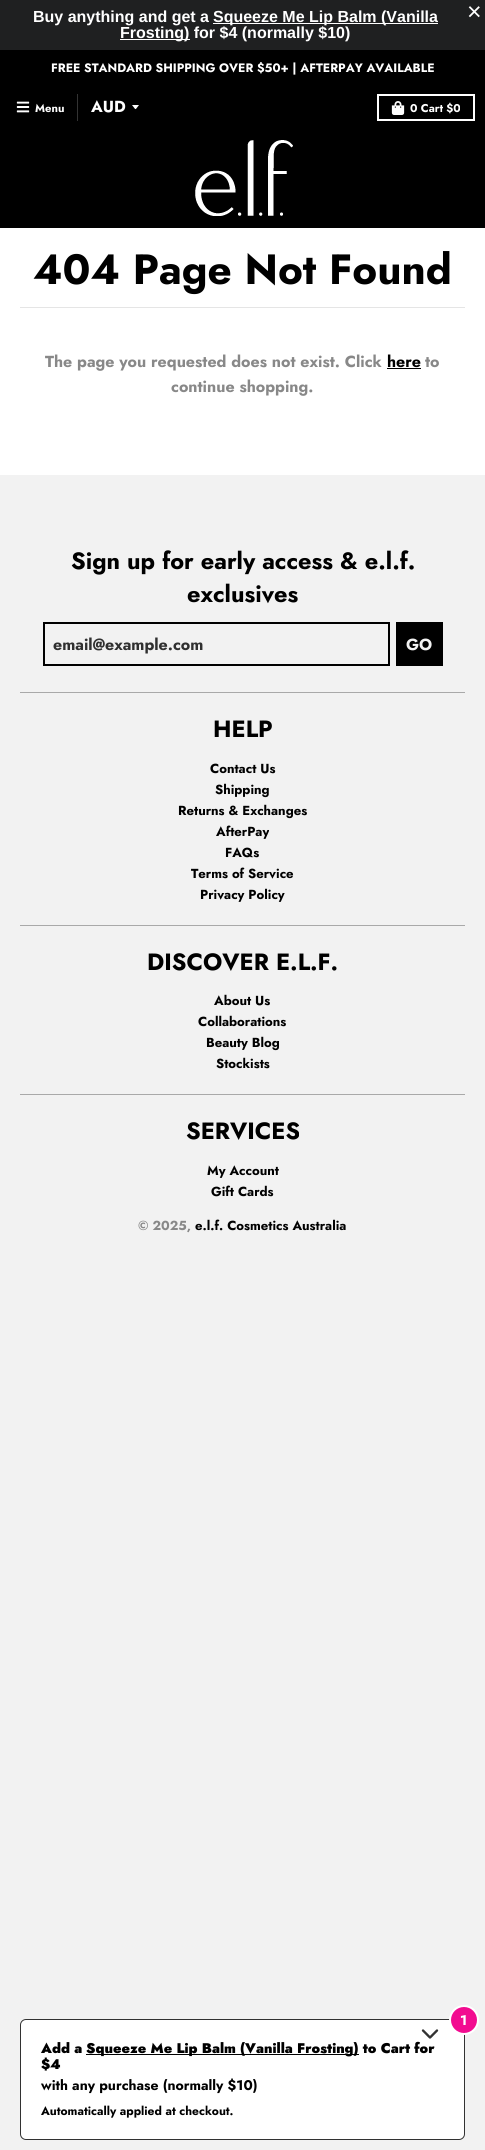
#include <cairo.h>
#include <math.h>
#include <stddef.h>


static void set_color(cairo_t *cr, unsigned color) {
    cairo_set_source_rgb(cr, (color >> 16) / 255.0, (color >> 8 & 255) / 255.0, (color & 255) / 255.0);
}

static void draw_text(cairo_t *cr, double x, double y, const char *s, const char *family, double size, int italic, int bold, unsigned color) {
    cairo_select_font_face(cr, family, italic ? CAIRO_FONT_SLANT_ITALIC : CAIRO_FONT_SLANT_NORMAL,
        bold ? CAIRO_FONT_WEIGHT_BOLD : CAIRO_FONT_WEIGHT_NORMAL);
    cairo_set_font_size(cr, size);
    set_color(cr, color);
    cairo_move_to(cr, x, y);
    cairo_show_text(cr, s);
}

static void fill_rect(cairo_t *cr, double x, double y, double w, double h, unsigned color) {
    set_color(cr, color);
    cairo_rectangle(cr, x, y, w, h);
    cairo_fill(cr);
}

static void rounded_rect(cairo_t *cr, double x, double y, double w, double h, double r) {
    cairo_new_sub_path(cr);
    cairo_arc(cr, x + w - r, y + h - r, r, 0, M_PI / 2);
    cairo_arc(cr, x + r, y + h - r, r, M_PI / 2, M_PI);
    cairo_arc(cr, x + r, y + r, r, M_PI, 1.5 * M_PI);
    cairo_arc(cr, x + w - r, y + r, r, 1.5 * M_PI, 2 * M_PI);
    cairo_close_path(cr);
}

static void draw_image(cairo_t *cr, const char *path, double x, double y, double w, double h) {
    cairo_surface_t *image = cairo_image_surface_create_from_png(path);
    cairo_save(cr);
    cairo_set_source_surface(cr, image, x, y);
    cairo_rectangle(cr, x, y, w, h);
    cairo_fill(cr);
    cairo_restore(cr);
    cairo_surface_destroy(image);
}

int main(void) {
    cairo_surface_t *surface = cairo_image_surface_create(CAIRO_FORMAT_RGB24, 485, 2150);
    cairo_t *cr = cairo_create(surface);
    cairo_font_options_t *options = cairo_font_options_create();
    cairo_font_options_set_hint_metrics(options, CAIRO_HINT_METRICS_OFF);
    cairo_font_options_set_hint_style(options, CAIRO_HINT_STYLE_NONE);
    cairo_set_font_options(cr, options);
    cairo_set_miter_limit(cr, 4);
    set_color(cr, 0xF2F2F2);
    cairo_paint(cr);
    fill_rect(cr, 0, 228, 485, 247, 0xFFFFFF);
    fill_rect(cr, 0, 0, 485, 50, 0x1F2021);
    draw_text(cr, 33, 22, "Buy anything and get a", "Liberation Sans", 16, 0, 1, 0xFFFFFF);
    fill_rect(cr, 213, 23, 225, 1, 0xFFFFFF);
    draw_text(cr, 213, 22, "Squeeze Me Lip Balm (Vanilla", "Liberation Sans", 16, 0, 1, 0xFFFFFF);
    fill_rect(cr, 120, 39, 70, 1, 0xFFFFFF);
    draw_text(cr, 120, 38, "Frosting) for $4 (normally $10)", "Liberation Sans", 16, 0, 1, 0xFFFFFF);
    draw_text(cr, 467, 20, "×", "Liberation Sans", 25, 0, 0, 0xFFFFFF);
    fill_rect(cr, 0, 50, 485, 77, 0x000000);
    draw_text(cr, 51, 72, "FREE STANDARD SHIPPING OVER $50+ | AFTERPAY AVAILABLE", "Jost", 12.2, 0, 1, 0xFFFFFF);
    fill_rect(cr, 77, 94, 1, 27, 0x333333);
    draw_image(cr, "assets/img1.png", 16, 101, 14, 12);
    draw_text(cr, 35, 112, "Menu", "Jost", 11.25, 0, 1, 0xFFFFFF);
    cairo_new_path(cr);
    cairo_move_to(cr, 132, 105);
    cairo_curve_to(cr, 136.5, 110.5, 134.5, 110.5, 139, 105);
    cairo_close_path(cr);
    cairo_fill(cr);
    draw_text(cr, 91, 112, "AUD", "Jost", 16, 0, 1, 0xFFFFFF);
    cairo_rectangle(cr, 378, 95, 96, 25);
    cairo_stroke(cr);
    draw_image(cr, "assets/img2.png", 391, 101, 14, 14);
    draw_text(cr, 410, 112, "0 Cart $0", "Jost", 11.25, 0, 1, 0xFFFFFF);
    fill_rect(cr, 0, 127, 485, 101, 0x000000);
    draw_image(cr, "assets/img3.png", 195, 140, 98, 76);
    fill_rect(cr, 20, 307, 445, 1, 0xE5E5E5);
    draw_text(cr, 33, 284, "404 Page Not Found", "Jost", 42.25, 0, 1, 0x000000);
    draw_text(cr, 45, 367, "The page you requested does not exist. Click", "Jost", 16, 0, 1, 0x888888);
    draw_text(cr, 387, 367, "here", "Jost", 16, 0, 1, 0x000000);
    fill_rect(cr, 387, 368, 34, 1, 0x000000);
    draw_text(cr, 425, 367, "to", "Jost", 16, 0, 1, 0x888888);
    draw_text(cr, 171, 392, "continue shopping.", "Jost", 16, 0, 1, 0x888888);
    draw_text(cr, 71, 569, "Sign up for early access & e.l.f.", "Jost", 23.5, 0, 1, 0x000000);
    draw_text(cr, 187, 602, "exclusives", "Jost", 23.5, 0, 1, 0x000000);
    fill_rect(cr, 20, 692, 445, 1, 0xA9A9A9);
    cairo_rectangle(cr, 44, 623, 345, 42);
    set_color(cr, 0x000000);
    cairo_stroke(cr);
    draw_text(cr, 53, 650, "email@example.com", "Jost", 16, 0, 1, 0x303030);
    fill_rect(cr, 396, 622, 47, 44, 0x000000);
    draw_text(cr, 406, 650, "GO", "Jost", 16, 0, 1, 0xF2F2F2);
    draw_text(cr, 213, 737, "HELP", "Jost", 23.5, 0, 1, 0x000000);
    fill_rect(cr, 20, 925, 445, 1, 0xA9A9A9);
    draw_text(cr, 210, 773, "Contact Us", "Jost", 13.1, 0, 1, 0x000000);
    draw_text(cr, 215, 794, "Shipping", "Jost", 13.1, 0, 1, 0x000000);
    draw_text(cr, 178, 815, "Returns & Exchanges", "Jost", 13.1, 0, 1, 0x000000);
    draw_text(cr, 216, 836, "AfterPay", "Jost", 13.1, 0, 1, 0x000000);
    draw_text(cr, 225, 857, "FAQs", "Jost", 13.1, 0, 1, 0x000000);
    draw_text(cr, 191, 878, "Terms of Service", "Jost", 13.1, 0, 1, 0x000000);
    draw_text(cr, 200, 899, "Privacy Policy", "Jost", 13.1, 0, 1, 0x000000);
    draw_text(cr, 147, 970, "DISCOVER E.L.F.", "Jost", 23.5, 0, 1, 0x000000);
    fill_rect(cr, 20, 1094, 445, 1, 0xA9A9A9);
    draw_text(cr, 214, 1005, "About Us", "Jost", 13.1, 0, 1, 0x000000);
    draw_text(cr, 198, 1026, "Collaborations", "Jost", 13.1, 0, 1, 0x000000);
    draw_text(cr, 206, 1047, "Beauty Blog", "Jost", 13.1, 0, 1, 0x000000);
    draw_text(cr, 216, 1068, "Stockists", "Jost", 13.1, 0, 1, 0x000000);
    draw_text(cr, 186, 1139, "SERVICES", "Jost", 23.5, 0, 1, 0x000000);
    draw_text(cr, 207, 1175, "My Account", "Jost", 13.1, 0, 1, 0x000000);
    draw_text(cr, 211, 1196, "Gift Cards", "Jost", 13.1, 0, 1, 0x000000);
    draw_text(cr, 138, 1230, "© 2025,", "Jost", 13.1, 0, 1, 0x888888);
    draw_text(cr, 195, 1230, "e.l.f. Cosmetics Australia", "Jost", 13.1, 0, 1, 0x000000);
    set_color(cr, 0xFFFFFF);
    rounded_rect(cr, 20.5, 2019.5, 444, 120, 5.5);
    cairo_fill_preserve(cr);
    set_color(cr, 0x323232);
    cairo_set_line_width(cr, 1);
    cairo_stroke(cr);
    set_color(cr, 0xF20C90);
    cairo_arc(cr, 464, 2020, 14, 0, 2 * M_PI);
    cairo_fill_preserve(cr);
    set_color(cr, 0xFFFFFF);
    cairo_set_line_width(cr, 2);
    cairo_stroke(cr);
    draw_text(cr, 460, 2025, "1", "Jost", 14, 0, 1, 0xFFFFFF);
    draw_image(cr, "assets/img4.png", 421, 2029, 18, 10);
    draw_text(cr, 41, 2053, "Add a", "Jost Black", 14, 0, 0, 0x000000);
    fill_rect(cr, 86, 2054, 273, 1, 0x000000);
    draw_text(cr, 86, 2053, "Squeeze Me Lip Balm (Vanilla Frosting) to Cart for", "Jost Black", 14, 0, 0, 0x000000);
    draw_text(cr, 41, 2069, "$4", "Jost Black", 14, 0, 0, 0x000000);
    draw_text(cr, 41, 2090, "with any purchase (normally $10)", "Jost", 14, 0, 1, 0x000000);
    draw_text(cr, 41, 2115, "Automatically applied at checkout.", "Jost", 12, 0, 1, 0x000000);
    cairo_surface_write_to_png(surface, "output.png");
    cairo_font_options_destroy(options);
    cairo_destroy(cr);
    cairo_surface_destroy(surface);
    return 0;
}
